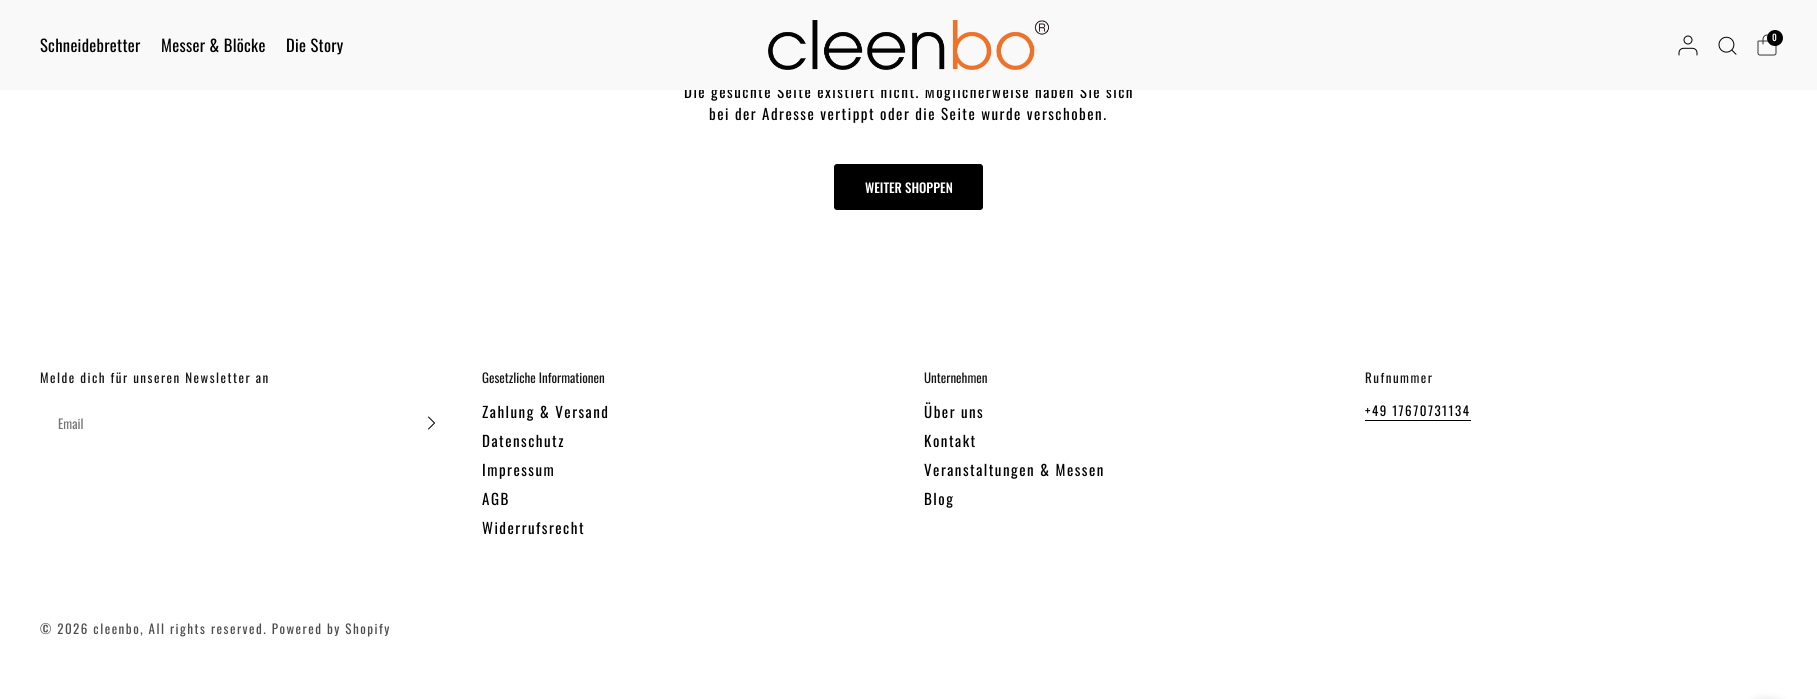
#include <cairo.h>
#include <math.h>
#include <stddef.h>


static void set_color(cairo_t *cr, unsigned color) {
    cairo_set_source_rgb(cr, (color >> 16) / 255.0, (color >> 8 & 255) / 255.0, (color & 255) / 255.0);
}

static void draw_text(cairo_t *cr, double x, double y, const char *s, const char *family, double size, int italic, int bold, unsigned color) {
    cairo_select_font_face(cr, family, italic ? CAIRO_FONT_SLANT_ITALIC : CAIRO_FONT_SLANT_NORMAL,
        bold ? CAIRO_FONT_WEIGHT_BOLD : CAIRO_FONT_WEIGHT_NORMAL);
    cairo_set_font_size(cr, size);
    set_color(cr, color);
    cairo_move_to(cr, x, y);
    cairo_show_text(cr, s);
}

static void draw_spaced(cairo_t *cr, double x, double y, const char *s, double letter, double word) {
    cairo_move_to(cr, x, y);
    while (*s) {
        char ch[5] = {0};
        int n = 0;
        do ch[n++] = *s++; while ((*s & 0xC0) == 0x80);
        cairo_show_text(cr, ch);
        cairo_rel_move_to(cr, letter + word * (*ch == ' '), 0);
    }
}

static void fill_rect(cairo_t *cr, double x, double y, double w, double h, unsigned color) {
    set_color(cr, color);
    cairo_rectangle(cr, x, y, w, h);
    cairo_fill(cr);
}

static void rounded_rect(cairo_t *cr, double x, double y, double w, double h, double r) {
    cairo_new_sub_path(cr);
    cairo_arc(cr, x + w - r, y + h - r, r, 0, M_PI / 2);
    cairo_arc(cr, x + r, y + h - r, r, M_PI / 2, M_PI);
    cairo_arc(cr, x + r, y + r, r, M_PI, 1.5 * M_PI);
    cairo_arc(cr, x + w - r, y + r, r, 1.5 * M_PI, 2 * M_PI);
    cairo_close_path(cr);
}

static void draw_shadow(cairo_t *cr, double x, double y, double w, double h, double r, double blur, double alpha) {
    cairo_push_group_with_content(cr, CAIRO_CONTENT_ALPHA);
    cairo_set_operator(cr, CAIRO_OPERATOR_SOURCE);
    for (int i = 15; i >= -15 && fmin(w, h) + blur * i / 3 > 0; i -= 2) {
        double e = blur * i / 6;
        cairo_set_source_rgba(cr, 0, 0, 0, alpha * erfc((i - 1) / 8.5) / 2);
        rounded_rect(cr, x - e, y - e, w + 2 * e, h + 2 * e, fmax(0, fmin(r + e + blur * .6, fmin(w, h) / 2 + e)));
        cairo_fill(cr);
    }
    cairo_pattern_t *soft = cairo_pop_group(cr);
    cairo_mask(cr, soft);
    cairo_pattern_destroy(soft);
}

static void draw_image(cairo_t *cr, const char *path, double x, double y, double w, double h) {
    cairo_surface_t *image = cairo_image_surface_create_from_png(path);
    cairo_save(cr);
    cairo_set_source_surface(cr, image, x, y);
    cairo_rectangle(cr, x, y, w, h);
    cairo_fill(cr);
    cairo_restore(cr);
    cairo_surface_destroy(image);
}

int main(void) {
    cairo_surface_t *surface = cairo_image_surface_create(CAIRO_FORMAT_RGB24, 1817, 699);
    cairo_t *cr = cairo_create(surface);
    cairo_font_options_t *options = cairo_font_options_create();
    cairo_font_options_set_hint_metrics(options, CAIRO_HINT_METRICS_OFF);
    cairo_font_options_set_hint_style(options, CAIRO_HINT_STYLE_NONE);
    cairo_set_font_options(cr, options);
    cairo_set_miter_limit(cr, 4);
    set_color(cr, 0xFFFFFF);
    cairo_paint(cr);
    cairo_select_font_face(cr, "Oswald", CAIRO_FONT_SLANT_NORMAL, CAIRO_FONT_WEIGHT_NORMAL);
    cairo_set_font_size(cr, 15);
    set_color(cr, 0x000000);
    draw_spaced(cr, 684, 98, "Die gesuchte Seite existiert nicht. Möglicherweise haben Sie sich", 1.5, 0);
    fill_rect(cr, 0, 0, 1817, 90, 0xF9F9F9);
    cairo_set_font_size(cr, 16.5);
    set_color(cr, 0x000000);
    draw_spaced(cr, 40, 52, "Schneidebretter", 0.3, 0);
    draw_spaced(cr, 161, 52, "Messer & Blöcke", 0.3, 0);
    draw_spaced(cr, 286, 52, "Die Story", 0.3, 0);
    draw_image(cr, "assets/img1.png", 768, 20, 281, 50);
    draw_image(cr, "assets/img2.png", 1678, 35, 20, 21);
    draw_image(cr, "assets/img3.png", 1718, 36, 19, 19);
    draw_image(cr, "assets/img4.png", 1757, 34, 20, 22);
    cairo_arc(cr, 1775, 38, 8, 0, 2 * M_PI);
    cairo_fill(cr);
    cairo_select_font_face(cr, "Oswald Medium", CAIRO_FONT_SLANT_NORMAL, CAIRO_FONT_WEIGHT_NORMAL);
    cairo_set_font_size(cr, 9);
    set_color(cr, 0xF9F9F9);
    draw_spaced(cr, 1772, 41, "0", 1.5, 0);
    cairo_select_font_face(cr, "Oswald", CAIRO_FONT_SLANT_NORMAL, CAIRO_FONT_WEIGHT_NORMAL);
    cairo_set_font_size(cr, 15);
    set_color(cr, 0x000000);
    draw_spaced(cr, 709, 120, "bei der Adresse vertippt oder die Seite wurde verschoben.", 1.5, 0);
    rounded_rect(cr, 834.5, 164.5, 148, 45, 2.5);
    cairo_fill_preserve(cr);
    cairo_set_line_width(cr, 1);
    cairo_stroke(cr);
    draw_text(cr, 865, 193, "WEITER SHOPPEN", "Oswald Medium", 13, 0, 0, 0xFFFFFF);
    cairo_select_font_face(cr, "Oswald", CAIRO_FONT_SLANT_NORMAL, CAIRO_FONT_WEIGHT_NORMAL);
    set_color(cr, 0x151515);
    draw_spaced(cr, 40, 383, "Melde dich für unseren Newsletter an", 1.5, 0);
    draw_text(cr, 58, 429, "Email", "Oswald", 13, 0, 0, 0x757575);
    cairo_new_path(cr);
    cairo_move_to(cr, 428.5, 417);
    cairo_line_to(cr, 434.5, 423);
    cairo_line_to(cr, 428.5, 429);
    set_color(cr, 0x000000);
    cairo_set_line_cap(cr, CAIRO_LINE_CAP_ROUND);
    cairo_set_line_join(cr, CAIRO_LINE_JOIN_ROUND);
    cairo_stroke(cr);
    draw_text(cr, 482, 383, "Gesetzliche Informationen", "Oswald", 13, 0, 0, 0x151515);
    cairo_set_font_size(cr, 15);
    set_color(cr, 0x000000);
    draw_spaced(cr, 482, 418, "Zahlung & Versand", 1.5, 0);
    draw_spaced(cr, 482, 447, "Datenschutz", 1.5, 0);
    draw_spaced(cr, 482, 476, "Impressum", 1.5, 0);
    draw_spaced(cr, 482, 505, "AGB", 1.5, 0);
    draw_spaced(cr, 482, 534, "Widerrufsrecht", 1.5, 0);
    draw_text(cr, 924, 383, "Unternehmen", "Oswald", 13, 0, 0, 0x151515);
    cairo_set_font_size(cr, 15);
    set_color(cr, 0x000000);
    draw_spaced(cr, 924, 418, "Über uns", 1.5, 0);
    draw_spaced(cr, 924, 447, "Kontakt", 1.5, 0);
    draw_spaced(cr, 924, 476, "Veranstaltungen & Messen", 1.5, 0);
    draw_spaced(cr, 924, 505, "Blog", 1.5, 0);
    cairo_set_font_size(cr, 13);
    set_color(cr, 0x151515);
    draw_spaced(cr, 1365, 383, "Rufnummer", 1.5, 0);
    set_color(cr, 0x000000);
    draw_spaced(cr, 1365, 416, "+49 17670731134", 1.5, 0);
    fill_rect(cr, 1365, 420, 106, 1, 0x000000);
    set_color(cr, 0x4D4D4D);
    draw_spaced(cr, 40, 634, "© 2026 cleenbo, All rights reserved. Powered by Shopify", 1.5, 0);
    set_color(cr, 0x000000);
    draw_shadow(cr, 1747, 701, 40, 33, 20, 5, 0.15);
    cairo_surface_write_to_png(surface, "output.png");
    cairo_font_options_destroy(options);
    cairo_destroy(cr);
    cairo_surface_destroy(surface);
    return 0;
}
